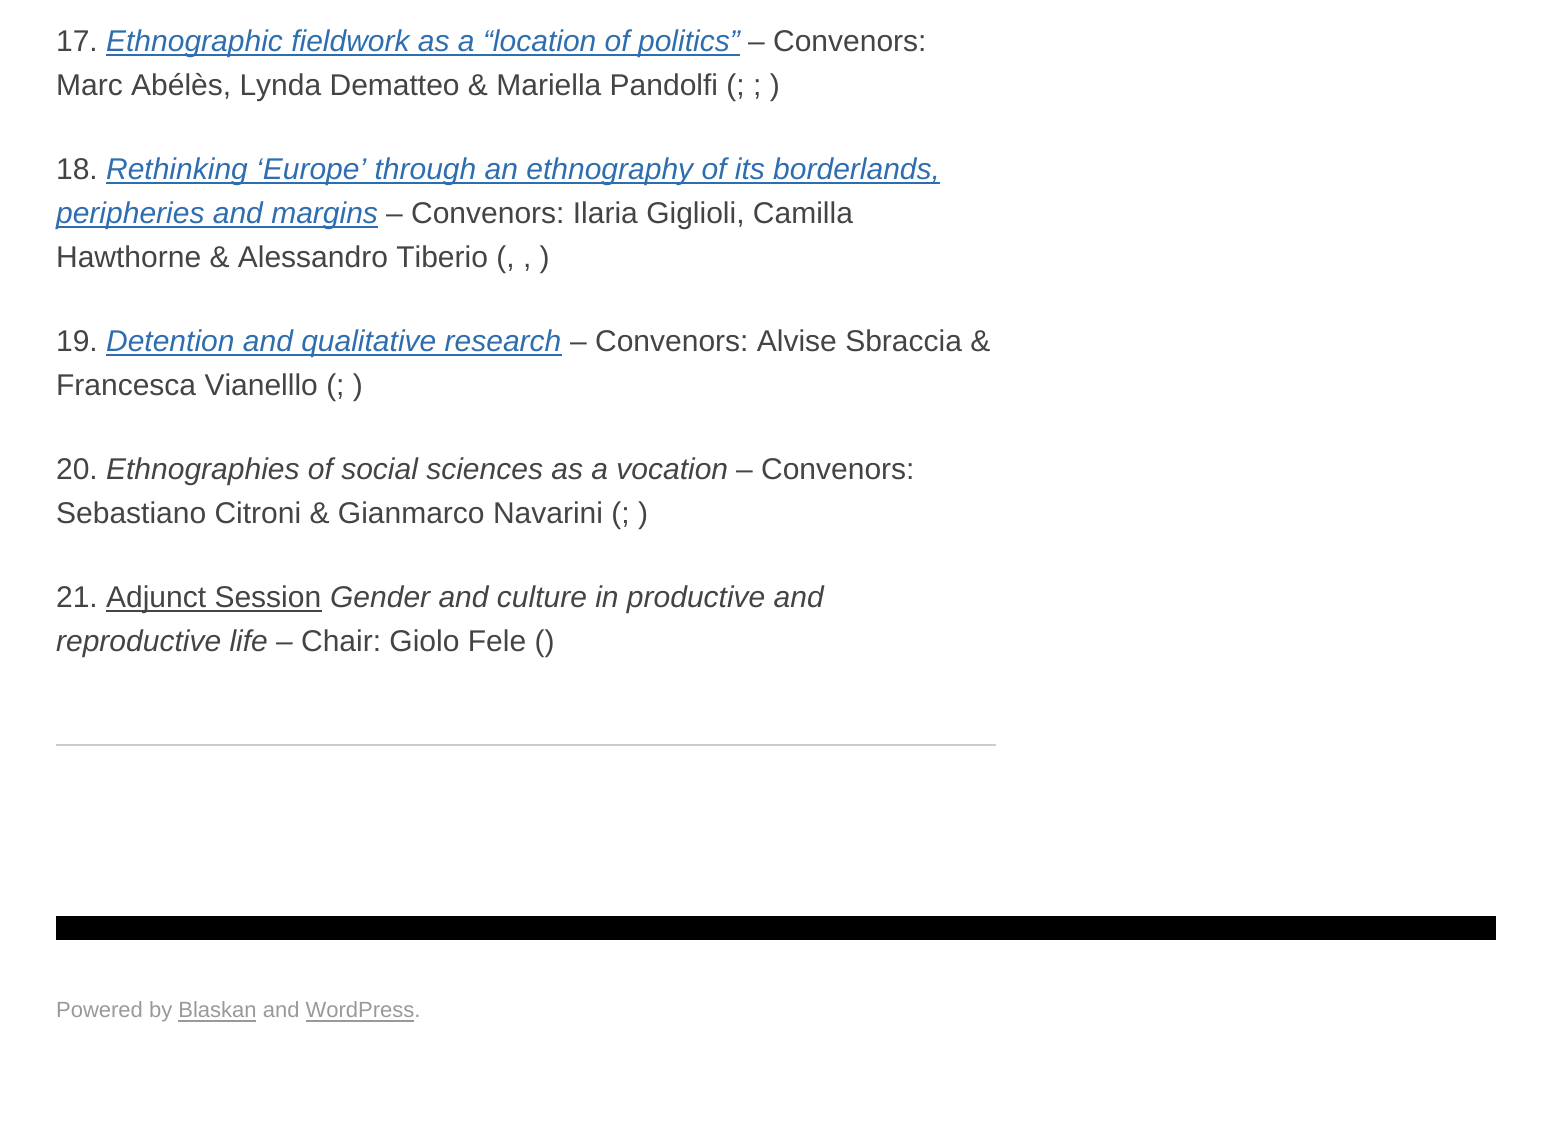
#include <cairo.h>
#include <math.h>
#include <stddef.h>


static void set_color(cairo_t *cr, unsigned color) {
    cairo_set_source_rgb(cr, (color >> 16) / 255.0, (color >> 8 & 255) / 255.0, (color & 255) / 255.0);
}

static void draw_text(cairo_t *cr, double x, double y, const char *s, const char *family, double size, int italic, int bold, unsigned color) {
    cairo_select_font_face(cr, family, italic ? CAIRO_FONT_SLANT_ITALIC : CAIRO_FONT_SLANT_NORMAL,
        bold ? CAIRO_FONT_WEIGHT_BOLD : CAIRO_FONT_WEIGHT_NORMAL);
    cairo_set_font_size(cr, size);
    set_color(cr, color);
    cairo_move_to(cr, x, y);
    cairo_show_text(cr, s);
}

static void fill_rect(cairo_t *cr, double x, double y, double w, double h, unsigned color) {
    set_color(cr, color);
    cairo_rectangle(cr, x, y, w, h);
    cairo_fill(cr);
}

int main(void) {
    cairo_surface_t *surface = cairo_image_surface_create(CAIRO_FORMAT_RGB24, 1551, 1133);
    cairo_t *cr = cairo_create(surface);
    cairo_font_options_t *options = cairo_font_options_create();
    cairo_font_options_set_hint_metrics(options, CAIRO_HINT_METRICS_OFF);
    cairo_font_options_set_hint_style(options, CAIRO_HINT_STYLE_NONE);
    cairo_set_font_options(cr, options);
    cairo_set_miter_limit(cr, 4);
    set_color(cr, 0xFFFFFF);
    cairo_paint(cr);
    draw_text(cr, 56, 51, "17.", "Liberation Sans", 30, 0, 0, 0x444444);
    fill_rect(cr, 106, 54, 634, 2, 0x2E6EB0);
    draw_text(cr, 106, 51, "Ethnographic fieldwork as a “location of politics”", "Liberation Sans", 30, 1, 0, 0x2E6EB0);
    draw_text(cr, 748, 51, "– Convenors:", "Liberation Sans", 30, 0, 0, 0x444444);
    draw_text(cr, 56, 95, "Marc Abélès, Lynda Dematteo & Mariella Pandolfi (; ; )", "Liberation Sans", 30, 0, 0, 0x444444);
    draw_text(cr, 56, 179, "18.", "Liberation Sans", 30, 0, 0, 0x444444);
    fill_rect(cr, 106, 182, 834, 2, 0x2E6EB0);
    draw_text(cr, 106, 179, "Rethinking ‘Europe’ through an ethnography of its borderlands,", "Liberation Sans", 30, 1, 0, 0x2E6EB0);
    fill_rect(cr, 56, 226, 322, 2, 0x2E6EB0);
    draw_text(cr, 56, 223, "peripheries and margins", "Liberation Sans", 30, 1, 0, 0x2E6EB0);
    draw_text(cr, 386, 223, "– Convenors: Ilaria Giglioli, Camilla", "Liberation Sans", 30, 0, 0, 0x444444);
    draw_text(cr, 56, 267, "Hawthorne & Alessandro Tiberio (, , )", "Liberation Sans", 30, 0, 0, 0x444444);
    draw_text(cr, 56, 351, "19.", "Liberation Sans", 30, 0, 0, 0x444444);
    fill_rect(cr, 106, 354, 456, 2, 0x2E6EB0);
    draw_text(cr, 106, 351, "Detention and qualitative research", "Liberation Sans", 30, 1, 0, 0x2E6EB0);
    draw_text(cr, 570, 351, "– Convenors: Alvise Sbraccia &", "Liberation Sans", 30, 0, 0, 0x444444);
    draw_text(cr, 56, 395, "Francesca Vianelllo (; )", "Liberation Sans", 30, 0, 0, 0x444444);
    draw_text(cr, 56, 479, "20.", "Liberation Sans", 30, 0, 0, 0x444444);
    draw_text(cr, 106, 479, "Ethnographies of social sciences as a vocation", "Liberation Sans", 30, 1, 0, 0x444444);
    draw_text(cr, 736, 479, "– Convenors:", "Liberation Sans", 30, 0, 0, 0x444444);
    draw_text(cr, 56, 523, "Sebastiano Citroni & Gianmarco Navarini (; )", "Liberation Sans", 30, 0, 0, 0x444444);
    draw_text(cr, 56, 607, "21.", "Liberation Sans", 30, 0, 0, 0x444444);
    fill_rect(cr, 106, 610, 216, 2, 0x444444);
    draw_text(cr, 106, 607, "Adjunct Session", "Liberation Sans", 30, 0, 0, 0x444444);
    draw_text(cr, 330, 607, "Gender and culture in productive and", "Liberation Sans", 30, 1, 0, 0x444444);
    draw_text(cr, 56, 651, "reproductive life –", "Liberation Sans", 30, 1, 0, 0x444444);
    draw_text(cr, 301, 651, "Chair: Giolo Fele ()", "Liberation Sans", 30, 0, 0, 0x444444);
    fill_rect(cr, 56, 744, 940, 2, 0xCCCCCC);
    fill_rect(cr, 56, 916, 1440, 24, 0x000000);
    draw_text(cr, 56, 1017, "Powered by Blaskan and WordPress.", "Liberation Sans", 22, 0, 0, 0x999999);
    fill_rect(cr, 178, 1020, 78, 2, 0x999999);
    fill_rect(cr, 306, 1020, 108, 2, 0x999999);
    cairo_surface_write_to_png(surface, "output.png");
    cairo_font_options_destroy(options);
    cairo_destroy(cr);
    cairo_surface_destroy(surface);
    return 0;
}
